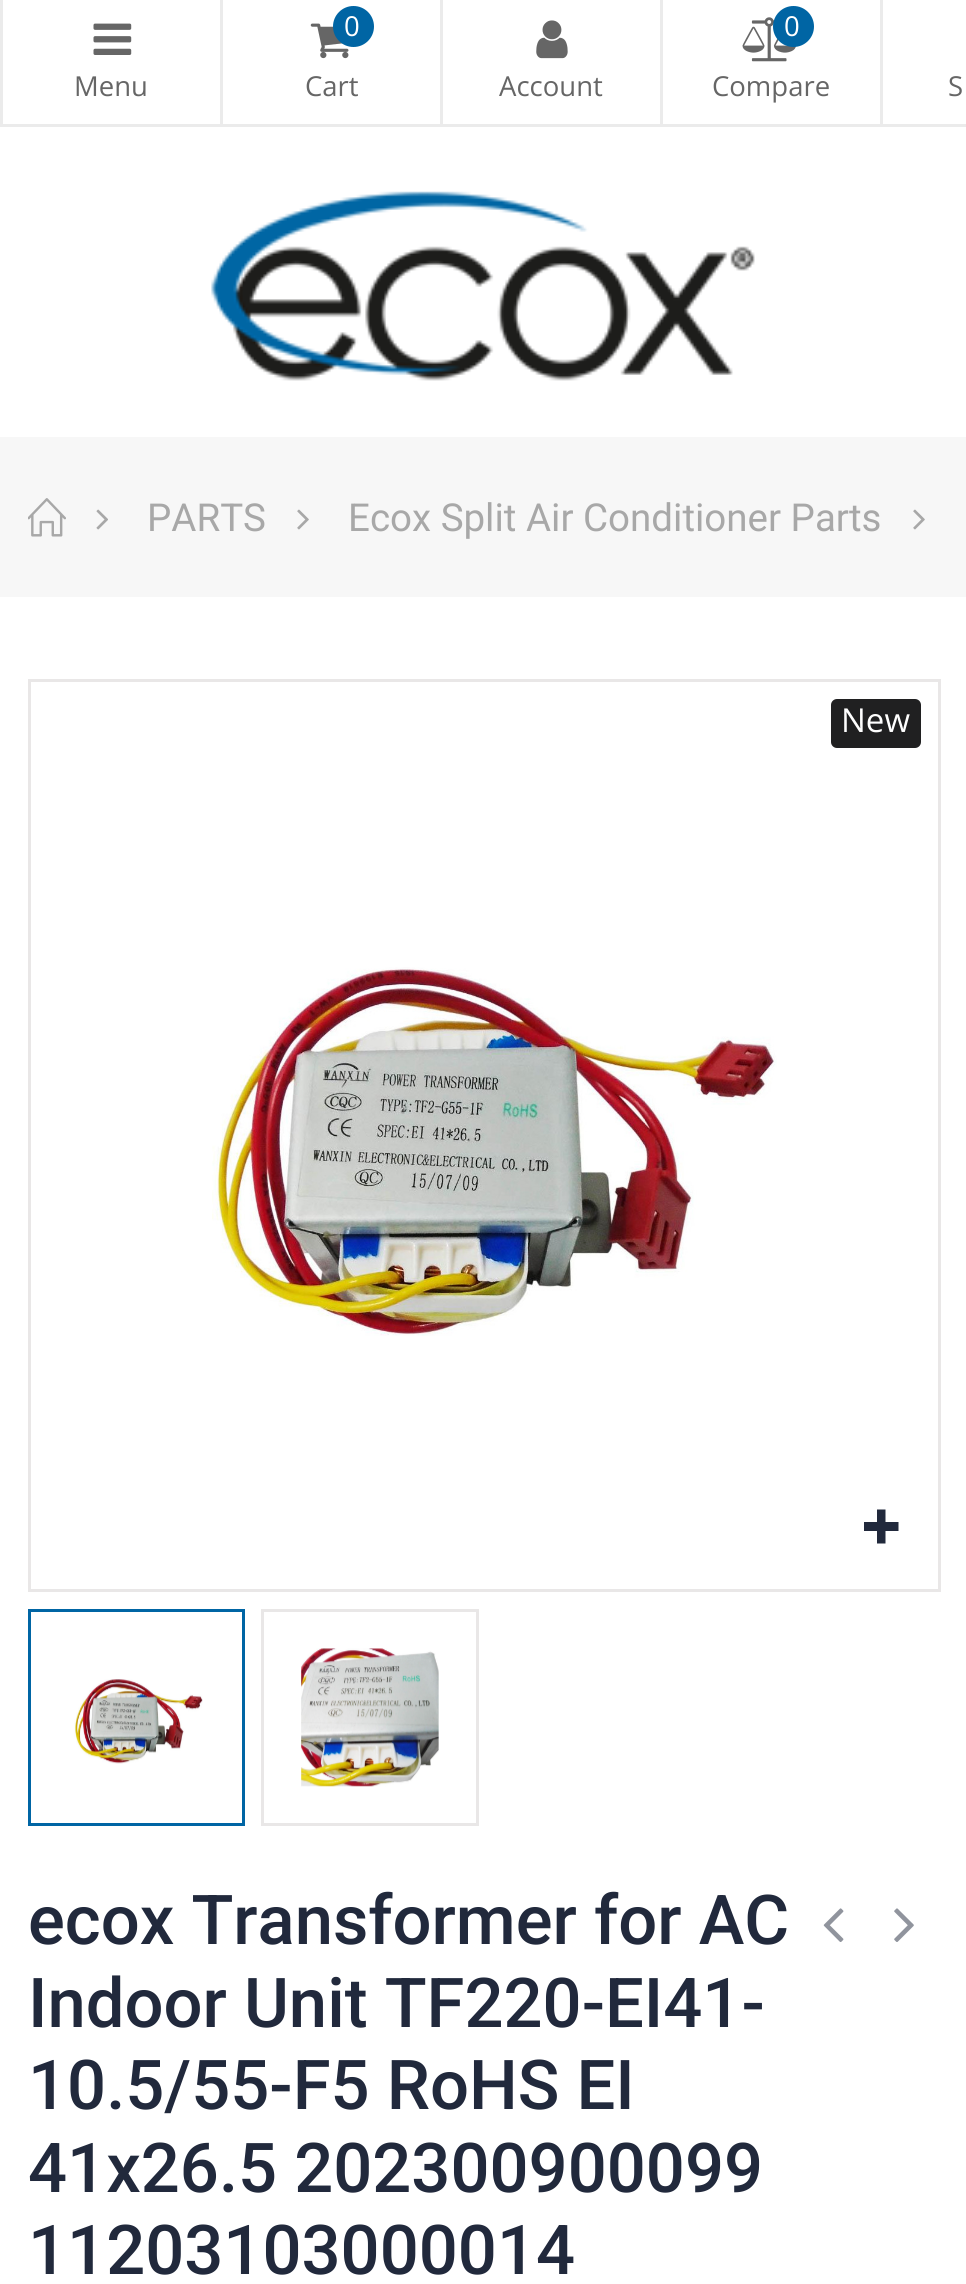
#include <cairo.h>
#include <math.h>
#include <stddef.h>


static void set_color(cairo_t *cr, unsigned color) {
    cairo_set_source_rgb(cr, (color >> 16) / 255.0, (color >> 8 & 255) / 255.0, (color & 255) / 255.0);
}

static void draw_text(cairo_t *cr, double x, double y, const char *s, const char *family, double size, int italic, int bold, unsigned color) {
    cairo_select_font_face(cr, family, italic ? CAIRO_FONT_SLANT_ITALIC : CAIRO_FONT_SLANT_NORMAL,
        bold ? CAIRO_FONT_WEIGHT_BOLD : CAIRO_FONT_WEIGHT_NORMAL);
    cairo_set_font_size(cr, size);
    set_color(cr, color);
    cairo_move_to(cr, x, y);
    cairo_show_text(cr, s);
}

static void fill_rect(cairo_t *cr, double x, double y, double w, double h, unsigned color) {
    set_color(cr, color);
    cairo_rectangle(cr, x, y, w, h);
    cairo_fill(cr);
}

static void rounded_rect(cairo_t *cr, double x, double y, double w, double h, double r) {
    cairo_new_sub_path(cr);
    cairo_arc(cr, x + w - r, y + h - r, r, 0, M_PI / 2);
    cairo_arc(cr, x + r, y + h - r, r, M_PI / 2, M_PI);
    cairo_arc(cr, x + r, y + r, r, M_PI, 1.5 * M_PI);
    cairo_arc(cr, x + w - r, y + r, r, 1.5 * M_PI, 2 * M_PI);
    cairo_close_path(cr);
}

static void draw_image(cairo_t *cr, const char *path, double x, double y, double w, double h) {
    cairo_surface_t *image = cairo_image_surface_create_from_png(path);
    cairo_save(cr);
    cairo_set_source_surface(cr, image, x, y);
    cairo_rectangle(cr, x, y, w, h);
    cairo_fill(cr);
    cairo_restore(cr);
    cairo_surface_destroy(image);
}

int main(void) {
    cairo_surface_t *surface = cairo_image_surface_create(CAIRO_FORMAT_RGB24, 966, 2284);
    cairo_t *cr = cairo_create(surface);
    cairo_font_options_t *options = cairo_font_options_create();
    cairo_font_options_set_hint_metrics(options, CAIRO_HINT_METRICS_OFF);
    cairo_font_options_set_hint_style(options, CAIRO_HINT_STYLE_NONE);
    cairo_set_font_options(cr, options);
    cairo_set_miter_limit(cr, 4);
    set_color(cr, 0xFFFFFF);
    cairo_paint(cr);
    fill_rect(cr, 0, 124, 966, 3, 0xEBEBEB);
    fill_rect(cr, 220, 0, 3, 124, 0xEBEBEB);
    fill_rect(cr, 0, 0, 3, 124, 0xEBEBEB);
    draw_image(cr, "assets/img1.png", 93, 23, 39, 32);
    draw_text(cr, 74, 96, "Menu", "Open Sans", 27.5, 0, 0, 0x666666);
    fill_rect(cr, 440, 0, 3, 124, 0xEBEBEB);
    draw_image(cr, "assets/img2.png", 310, 23, 39, 36);
    set_color(cr, 0x0065A4);
    cairo_arc(cr, 353.5, 26.5, 20.5, 0, 2 * M_PI);
    cairo_fill(cr);
    draw_text(cr, 344, 36, "0", "Open Sans", 27.5, 0, 0, 0xFFFFFF);
    draw_text(cr, 305, 96, "Cart", "Open Sans", 27.5, 0, 0, 0x666666);
    fill_rect(cr, 660, 0, 3, 124, 0xEBEBEB);
    draw_image(cr, "assets/img3.png", 536, 20, 32, 39);
    draw_text(cr, 499, 96, "Account", "Open Sans", 27.5, 0, 0, 0x666666);
    fill_rect(cr, 880, 0, 3, 124, 0xEBEBEB);
    draw_image(cr, "assets/img4.png", 742, 17, 54, 45);
    set_color(cr, 0x0065A4);
    cairo_arc(cr, 793.5, 26.5, 20.5, 0, 2 * M_PI);
    cairo_fill(cr);
    draw_text(cr, 784, 36, "0", "Open Sans", 27.5, 0, 0, 0xFFFFFF);
    draw_text(cr, 712, 96, "Compare", "Open Sans", 27.5, 0, 0, 0x666666);
    draw_text(cr, 948, 96, "S", "Open Sans", 27.5, 0, 0, 0x666666);
    draw_image(cr, "assets/img5.png", 211, 191, 544, 190);
    fill_rect(cr, 0, 437, 966, 160, 0xF7F7F7);
    draw_image(cr, "assets/img6.png", 28, 498, 38, 39);
    draw_image(cr, "assets/img7.png", 96, 509, 12, 21);
    draw_text(cr, 147, 531, "PARTS", "Roboto", 38.5, 0, 0, 0xA8A8A8);
    draw_image(cr, "assets/img8.png", 297, 509, 12, 21);
    draw_text(cr, 348, 531, "Ecox Split Air Conditioner Parts", "Roboto", 38.5, 0, 0, 0xA8A8A8);
    draw_image(cr, "assets/img8.png", 913, 509, 12, 21);
    cairo_rectangle(cr, 29.5, 680.5, 910, 910);
    set_color(cr, 0xE9E7E7);
    cairo_set_line_width(cr, 3);
    cairo_stroke(cr);
    set_color(cr, 0x202021);
    rounded_rect(cr, 831, 699, 90, 49, 6);
    cairo_fill(cr);
    draw_text(cr, 841, 732, "New", "Open Sans", 33, 0, 0, 0xFFFFFF);
    draw_image(cr, "assets/img9.png", 212, 967, 565, 369);
    set_color(cr, 0x21293C);
    cairo_new_path(cr);
    cairo_move_to(cr, 898.5, 1522);
    cairo_line_to(cr, 898.5, 1531);
    cairo_line_to(cr, 885.5, 1531);
    cairo_line_to(cr, 885.5, 1543.5);
    cairo_line_to(cr, 877, 1543.5);
    cairo_line_to(cr, 877, 1531);
    cairo_line_to(cr, 864, 1531);
    cairo_line_to(cr, 864, 1522);
    cairo_line_to(cr, 877, 1522);
    cairo_line_to(cr, 877, 1509.5);
    cairo_line_to(cr, 885.5, 1509.5);
    cairo_line_to(cr, 885.5, 1522);
    cairo_close_path(cr);
    cairo_fill(cr);
    cairo_rectangle(cr, 29.5, 1610.5, 214, 214);
    set_color(cr, 0x0065A4);
    cairo_stroke(cr);
    draw_image(cr, "assets/img10.png", 74, 1679, 129, 85);
    cairo_rectangle(cr, 262.5, 1610.5, 215, 214);
    set_color(cr, 0xE9E7E7);
    cairo_stroke(cr);
    draw_image(cr, "assets/img11.png", 301, 1648, 138, 139);
    draw_text(cr, 28, 1944, "ecox Transformer for AC", "Roboto Medium", 68.75, 0, 0, 0x21293C);
    draw_text(cr, 28, 2027, "Indoor Unit TF220-EI41-", "Roboto Medium", 68.75, 0, 0, 0x21293C);
    draw_text(cr, 28, 2109, "10.5/55-F5 RoHS EI", "Roboto Medium", 68.75, 0, 0, 0x21293C);
    draw_text(cr, 28, 2192, "41x26.5 202300900099", "Roboto Medium", 68.75, 0, 0, 0x21293C);
    draw_text(cr, 28, 2274, "11203103000014", "Roboto Medium", 68.75, 0, 0, 0x21293C);
    draw_image(cr, "assets/img12.png", 823, 1908, 21, 34);
    draw_image(cr, "assets/img13.png", 894, 1908, 20, 34);
    cairo_surface_write_to_png(surface, "output.png");
    cairo_font_options_destroy(options);
    cairo_destroy(cr);
    cairo_surface_destroy(surface);
    return 0;
}
